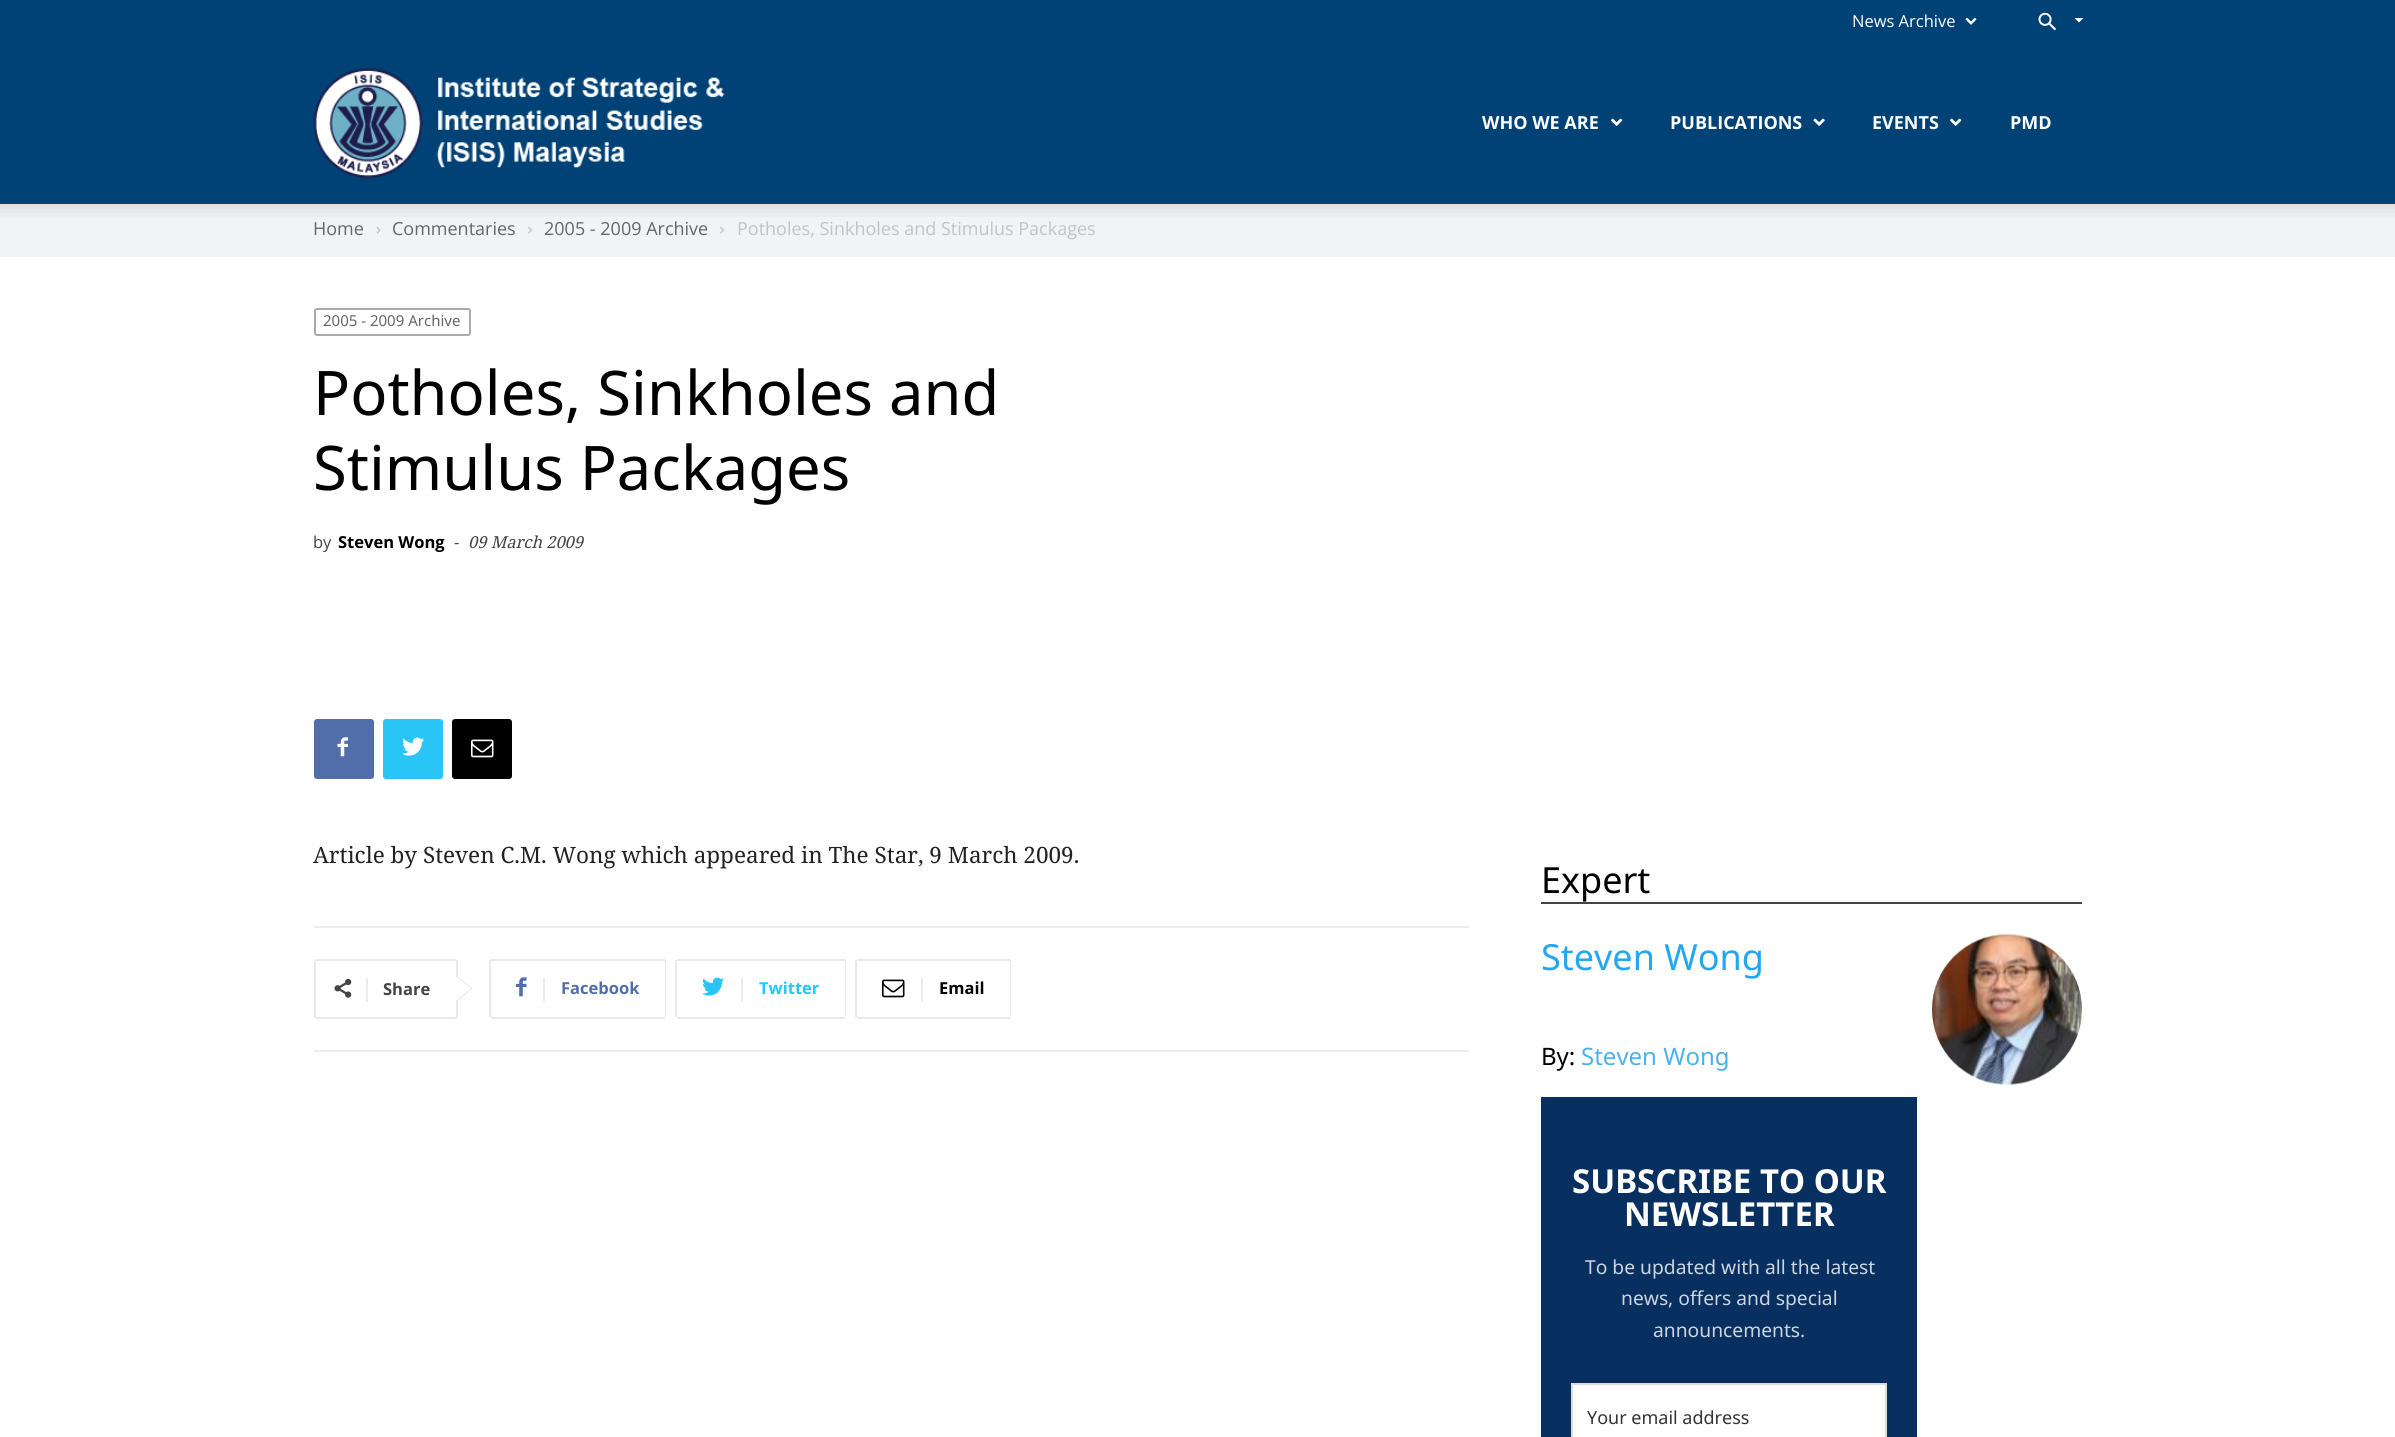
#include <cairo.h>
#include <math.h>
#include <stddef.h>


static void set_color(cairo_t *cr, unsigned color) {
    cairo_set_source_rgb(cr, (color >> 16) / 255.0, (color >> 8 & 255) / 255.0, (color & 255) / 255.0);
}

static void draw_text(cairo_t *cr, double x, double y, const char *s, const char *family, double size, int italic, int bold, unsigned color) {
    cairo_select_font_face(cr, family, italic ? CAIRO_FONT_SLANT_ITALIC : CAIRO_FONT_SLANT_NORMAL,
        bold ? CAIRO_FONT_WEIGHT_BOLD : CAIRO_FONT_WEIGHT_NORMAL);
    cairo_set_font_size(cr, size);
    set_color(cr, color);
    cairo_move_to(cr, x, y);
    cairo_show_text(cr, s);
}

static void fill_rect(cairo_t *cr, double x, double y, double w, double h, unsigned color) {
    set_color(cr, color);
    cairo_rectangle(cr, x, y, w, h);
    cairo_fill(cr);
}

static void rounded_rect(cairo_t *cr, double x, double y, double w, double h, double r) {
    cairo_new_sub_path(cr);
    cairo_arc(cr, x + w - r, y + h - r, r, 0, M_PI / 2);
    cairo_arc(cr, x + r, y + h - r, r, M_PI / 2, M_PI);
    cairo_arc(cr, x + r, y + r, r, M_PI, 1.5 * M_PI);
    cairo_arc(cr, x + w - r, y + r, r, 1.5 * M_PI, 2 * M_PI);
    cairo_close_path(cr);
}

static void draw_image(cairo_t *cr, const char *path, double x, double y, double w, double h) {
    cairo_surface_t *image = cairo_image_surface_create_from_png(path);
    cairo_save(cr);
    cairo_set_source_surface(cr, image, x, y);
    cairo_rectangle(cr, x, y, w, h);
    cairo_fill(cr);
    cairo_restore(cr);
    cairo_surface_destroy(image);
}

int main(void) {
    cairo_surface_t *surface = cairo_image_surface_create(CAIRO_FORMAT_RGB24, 2395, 1437);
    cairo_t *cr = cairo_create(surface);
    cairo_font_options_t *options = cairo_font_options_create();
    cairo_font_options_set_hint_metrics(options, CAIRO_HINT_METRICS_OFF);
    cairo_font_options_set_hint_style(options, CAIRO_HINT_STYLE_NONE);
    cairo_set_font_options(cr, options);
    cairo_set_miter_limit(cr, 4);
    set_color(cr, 0xFFFFFF);
    cairo_paint(cr);
    fill_rect(cr, 0, 0, 2395, 204, 0x004275);
    draw_text(cr, 1852, 27, "News Archive", "Open Sans", 16.5, 0, 0, 0xFFFFFF);
    draw_image(cr, "assets/img1.png", 1965, 17, 12, 8);
    draw_image(cr, "assets/img2.png", 2038, 12, 18, 19);
    cairo_new_path(cr);
    cairo_move_to(cr, 2074.5, 18);
    cairo_line_to(cr, 2083.5, 18);
    cairo_line_to(cr, 2079, 22.5);
    cairo_close_path(cr);
    cairo_fill(cr);
    draw_image(cr, "assets/img3.png", 313, 67, 412, 112);
    draw_text(cr, 1482, 129, "WHO WE ARE", "Open Sans", 18, 0, 1, 0xFFFFFF);
    draw_image(cr, "assets/img4.png", 1611, 118, 12, 8);
    draw_text(cr, 1670, 129, "PUBLICATIONS", "Open Sans", 18, 0, 1, 0xFFFFFF);
    draw_image(cr, "assets/img5.png", 1813, 118, 12, 8);
    draw_text(cr, 1872, 129, "EVENTS", "Open Sans", 18, 0, 1, 0xFFFFFF);
    draw_image(cr, "assets/img4.png", 1950, 118, 12, 8);
    draw_text(cr, 2010, 129, "PMD", "Open Sans", 18, 0, 1, 0xFFFFFF);
    fill_rect(cr, 0, 204, 2395, 53, 0xF0F4F4);
    draw_image(cr, "assets/img6.png", 0, 204, 2395, 13);
    draw_text(cr, 313, 235, "Home", "Open Sans", 18, 0, 0, 0x666666);
    draw_image(cr, "assets/img7.png", 376, 226, 5, 8);
    draw_text(cr, 392, 235, "Commentaries", "Open Sans", 18, 0, 0, 0x666666);
    draw_image(cr, "assets/img8.png", 528, 226, 4, 8);
    draw_text(cr, 544, 235, "2005 - 2009 Archive", "Open Sans", 18, 0, 0, 0x666666);
    draw_image(cr, "assets/img8.png", 720, 226, 4, 8);
    draw_text(cr, 737, 235, "Potholes, Sinkholes and Stimulus Packages", "Open Sans", 18, 0, 0, 0xC3C3C3);
    rounded_rect(cr, 315, 309, 155, 26, 2);
    set_color(cr, 0xAAAAAA);
    cairo_stroke(cr);
    draw_text(cr, 323, 326, "2005 - 2009 Archive", "Noto Sans", 15, 0, 0, 0x666666);
    draw_text(cr, 313, 415, "Potholes, Sinkholes and", "Noto Sans", 61.5, 0, 0, 0x000000);
    draw_text(cr, 313, 490, "Stimulus Packages", "Noto Sans", 61.5, 0, 0, 0x000000);
    draw_text(cr, 313, 548, "by", "Open Sans", 16.5, 0, 0, 0x444444);
    draw_text(cr, 338, 548, "Steven Wong", "Open Sans", 16.5, 0, 1, 0x000000);
    draw_text(cr, 454, 548, "-", "Open Sans", 16.5, 0, 0, 0x444444);
    draw_text(cr, 468, 548, "09 March 2009", "Noto Serif", 16.5, 1, 0, 0x444444);
    set_color(cr, 0x516EAB);
    rounded_rect(cr, 314, 719, 60, 60, 3);
    cairo_fill(cr);
    draw_image(cr, "assets/img9.png", 337, 737, 11, 20);
    set_color(cr, 0x29C5F6);
    rounded_rect(cr, 383, 719, 60, 60, 3);
    cairo_fill(cr);
    draw_image(cr, "assets/img10.png", 402, 737, 22, 19);
    set_color(cr, 0x000000);
    rounded_rect(cr, 452, 719, 60, 60, 3);
    cairo_fill(cr);
    draw_image(cr, "assets/img11.png", 471, 739, 23, 19);
    draw_text(cr, 313, 863, "Article by Steven C.M. Wong which appeared in The Star, 9 March 2009.", "Noto Serif", 22.5, 0, 0, 0x222222);
    fill_rect(cr, 314, 926, 1155, 2, 0xEDEDED);
    fill_rect(cr, 314, 1050, 1155, 2, 0xEDEDED);
    rounded_rect(cr, 315, 960, 142, 58, 2);
    set_color(cr, 0xE9E9E9);
    cairo_stroke(cr);
    cairo_new_path(cr);
    cairo_move_to(cr, 456, 1002);
    cairo_line_to(cr, 456, 975);
    cairo_line_to(cr, 472.5, 988.5);
    cairo_close_path(cr);
    cairo_fill(cr);
    draw_image(cr, "assets/img12.png", 334, 978, 18, 20);
    fill_rect(cr, 366, 978, 2, 24, 0xEBEBEB);
    draw_text(cr, 383, 995, "Share", "Open Sans", 16.5, 0, 1, 0x444444);
    set_color(cr, 0xFFFFFF);
    cairo_new_path(cr);
    cairo_move_to(cr, 456, 1000.5);
    cairo_line_to(cr, 456, 976.5);
    cairo_line_to(cr, 471, 988.5);
    cairo_close_path(cr);
    cairo_fill(cr);
    fill_rect(cr, 489, 960, 2, 57, 0xE9E9E9);
    draw_image(cr, "assets/img13.png", 516, 977, 11, 20);
    fill_rect(cr, 491, 959, 174, 2, 0xE9E9E9);
    fill_rect(cr, 665, 960, 1, 57, 0xE9E9E9);
    fill_rect(cr, 491, 1017, 174, 2, 0xE9E9E9);
    fill_rect(cr, 543, 978, 2, 24, 0xEBEBEB);
    draw_text(cr, 561, 994, "Facebook", "Open Sans", 16.5, 0, 1, 0x516EAB);
    fill_rect(cr, 675, 960, 2, 57, 0xE9E9E9);
    draw_image(cr, "assets/img14.png", 702, 977, 22, 19);
    fill_rect(cr, 677, 959, 168, 2, 0xE9E9E9);
    fill_rect(cr, 845, 960, 1, 57, 0xE9E9E9);
    fill_rect(cr, 677, 1017, 168, 2, 0xE9E9E9);
    fill_rect(cr, 741, 978, 2, 24, 0xEBEBEB);
    draw_text(cr, 759, 994, "Twitter", "Open Sans", 16.5, 0, 1, 0x29C5F6);
    fill_rect(cr, 855, 960, 2, 57, 0xE9E9E9);
    draw_image(cr, "assets/img15.png", 882, 979, 23, 19);
    fill_rect(cr, 857, 959, 153, 2, 0xE9E9E9);
    fill_rect(cr, 1010, 960, 1, 57, 0xE9E9E9);
    fill_rect(cr, 857, 1017, 153, 2, 0xE9E9E9);
    fill_rect(cr, 921, 978, 2, 24, 0xEBEBEB);
    draw_text(cr, 939, 994, "Email", "Open Sans", 16.5, 0, 1, 0x000000);
    fill_rect(cr, 1541, 902, 541, 2, 0x444444);
    draw_text(cr, 1541, 893, "Expert", "Noto Sans", 36, 0, 0, 0x000000);
    draw_text(cr, 1541, 970, "Steven Wong", "Noto Sans", 36, 0, 0, 0x22A7F0);
    draw_image(cr, "assets/img16.png", 1932, 934, 150, 151);
    draw_text(cr, 1541, 1065, "By:", "Noto Sans", 24, 0, 0, 0x000000);
    draw_text(cr, 1581, 1065, "Steven Wong", "Noto Sans", 24, 0, 0, 0x4DB2EC);
    fill_rect(cr, 1541, 1097, 376, 340, 0x072F5F);
    draw_text(cr, 1572, 1193, "SUBSCRIBE TO OUR", "Noto Sans", 33, 0, 1, 0xFFFFFF);
    draw_text(cr, 1624, 1226, "NEWSLETTER", "Noto Sans", 33, 0, 1, 0xFFFFFF);
    draw_text(cr, 1585, 1274, "To be updated with all the latest", "Noto Sans", 19.25, 0, 0, 0xCDD5DF);
    draw_text(cr, 1621, 1305, "news, offers and special", "Noto Sans", 19.25, 0, 0, 0xCDD5DF);
    draw_text(cr, 1653, 1337, "announcements.", "Noto Sans", 19.25, 0, 0, 0xCDD5DF);
    set_color(cr, 0xFFFFFF);
    cairo_rectangle(cr, 1572, 1384, 314, 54);
    cairo_fill_preserve(cr);
    set_color(cr, 0xDDDDDD);
    cairo_stroke(cr);
    draw_text(cr, 1587, 1424, "Your email address", "Noto Sans", 18, 0, 0, 0x333333);
    cairo_surface_write_to_png(surface, "output.png");
    cairo_font_options_destroy(options);
    cairo_destroy(cr);
    cairo_surface_destroy(surface);
    return 0;
}
